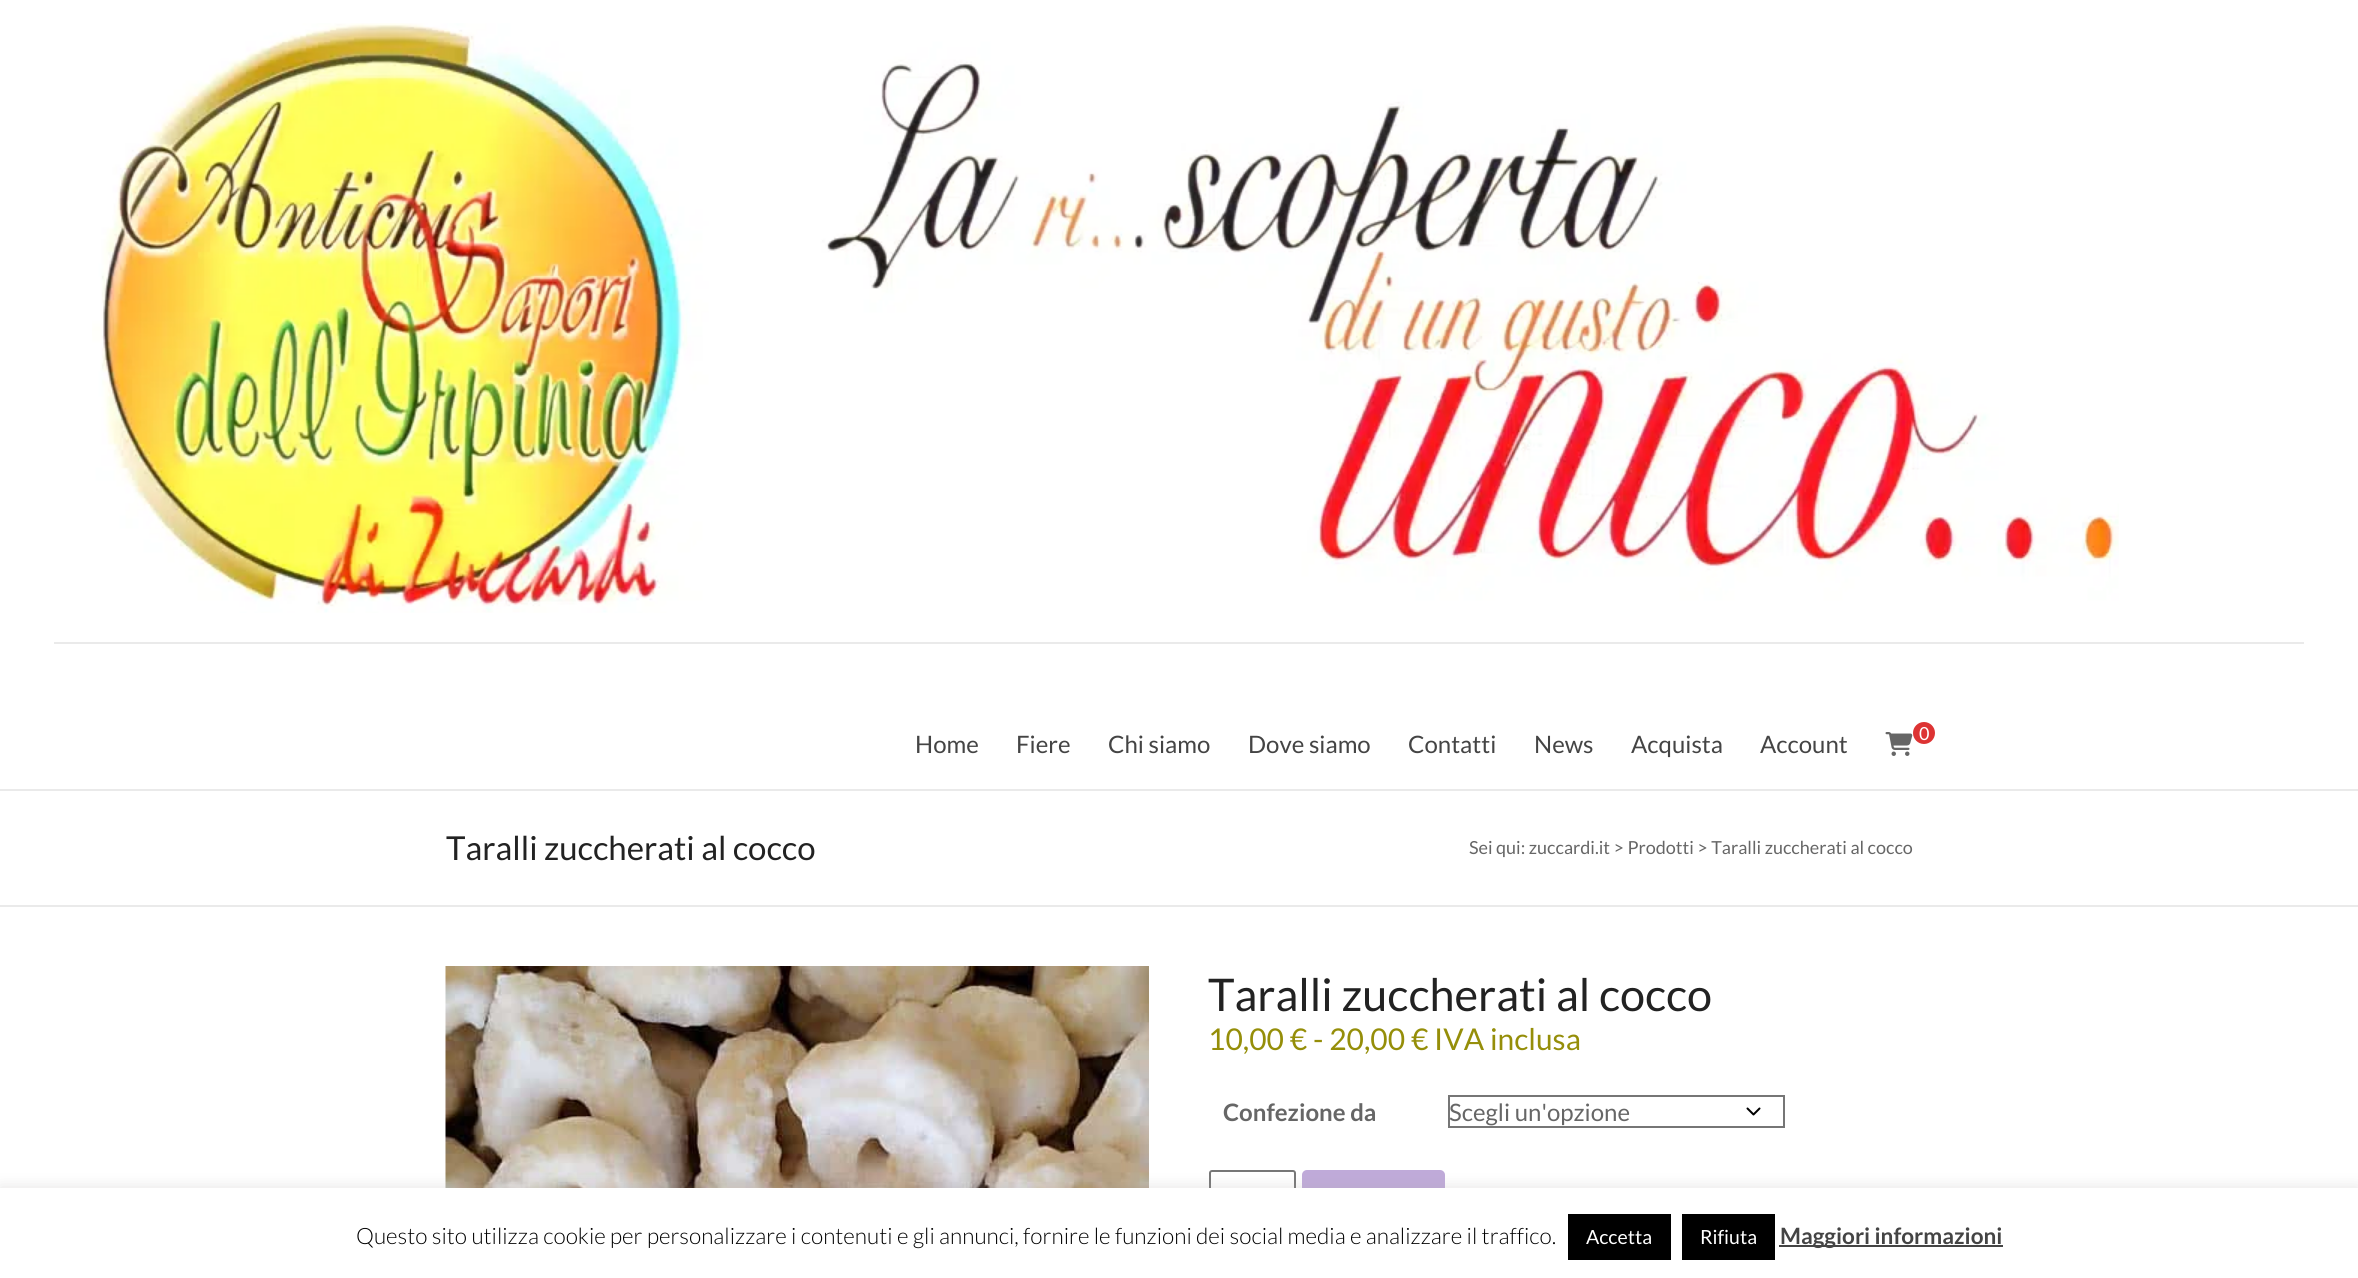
#include <cairo.h>
#include <math.h>
#include <stddef.h>


static void set_color(cairo_t *cr, unsigned color) {
    cairo_set_source_rgb(cr, (color >> 16) / 255.0, (color >> 8 & 255) / 255.0, (color & 255) / 255.0);
}

static void draw_text(cairo_t *cr, double x, double y, const char *s, const char *family, double size, int italic, int bold, unsigned color) {
    cairo_select_font_face(cr, family, italic ? CAIRO_FONT_SLANT_ITALIC : CAIRO_FONT_SLANT_NORMAL,
        bold ? CAIRO_FONT_WEIGHT_BOLD : CAIRO_FONT_WEIGHT_NORMAL);
    cairo_set_font_size(cr, size);
    set_color(cr, color);
    cairo_move_to(cr, x, y);
    cairo_show_text(cr, s);
}

static void fill_rect(cairo_t *cr, double x, double y, double w, double h, unsigned color) {
    set_color(cr, color);
    cairo_rectangle(cr, x, y, w, h);
    cairo_fill(cr);
}

static void rounded_rect(cairo_t *cr, double x, double y, double w, double h, double r) {
    cairo_new_sub_path(cr);
    cairo_arc(cr, x + w - r, y + h - r, r, 0, M_PI / 2);
    cairo_arc(cr, x + r, y + h - r, r, M_PI / 2, M_PI);
    cairo_arc(cr, x + r, y + r, r, M_PI, 1.5 * M_PI);
    cairo_arc(cr, x + w - r, y + r, r, 1.5 * M_PI, 2 * M_PI);
    cairo_close_path(cr);
}

static void draw_shadow(cairo_t *cr, double x, double y, double w, double h, double r, double blur, double alpha) {
    cairo_push_group_with_content(cr, CAIRO_CONTENT_ALPHA);
    cairo_set_operator(cr, CAIRO_OPERATOR_SOURCE);
    for (int i = 15; i >= -15 && fmin(w, h) + blur * i / 3 > 0; i -= 2) {
        double e = blur * i / 6;
        cairo_set_source_rgba(cr, 0, 0, 0, alpha * erfc((i - 1) / 8.5) / 2);
        rounded_rect(cr, x - e, y - e, w + 2 * e, h + 2 * e, fmax(0, fmin(r + e + blur * .6, fmin(w, h) / 2 + e)));
        cairo_fill(cr);
    }
    cairo_pattern_t *soft = cairo_pop_group(cr);
    cairo_mask(cr, soft);
    cairo_pattern_destroy(soft);
}

static void draw_image(cairo_t *cr, const char *path, double x, double y, double w, double h) {
    cairo_surface_t *image = cairo_image_surface_create_from_png(path);
    cairo_save(cr);
    cairo_set_source_surface(cr, image, x, y);
    cairo_rectangle(cr, x, y, w, h);
    cairo_fill(cr);
    cairo_restore(cr);
    cairo_surface_destroy(image);
}

int main(void) {
    cairo_surface_t *surface = cairo_image_surface_create(CAIRO_FORMAT_RGB24, 2358, 1278);
    cairo_t *cr = cairo_create(surface);
    cairo_font_options_t *options = cairo_font_options_create();
    cairo_font_options_set_hint_metrics(options, CAIRO_HINT_METRICS_OFF);
    cairo_font_options_set_hint_style(options, CAIRO_HINT_STYLE_NONE);
    cairo_set_font_options(cr, options);
    cairo_set_miter_limit(cr, 4);
    set_color(cr, 0xFFFFFF);
    cairo_paint(cr);
    draw_image(cr, "assets/img1.png", 92, 23, 2027, 590);
    fill_rect(cr, 54, 642, 2250, 2, 0xEAEAEA);
    fill_rect(cr, 0, 789, 2358, 2, 0xEAEAEA);
    draw_image(cr, "assets/img2.png", 1885, 732, 28, 24);
    set_color(cr, 0xDD3333);
    cairo_arc(cr, 1924, 733, 11, 0, 2 * M_PI);
    cairo_fill(cr);
    draw_text(cr, 1919, 740, "0", "Lato", 18, 0, 0, 0xFFFFFF);
    draw_text(cr, 915, 753, "Home", "Lato", 24, 0, 0, 0x444444);
    draw_text(cr, 1016, 753, "Fiere", "Lato", 24, 0, 0, 0x444444);
    draw_text(cr, 1108, 753, "Chi siamo", "Lato", 24, 0, 0, 0x444444);
    draw_text(cr, 1248, 753, "Dove siamo", "Lato", 24, 0, 0, 0x444444);
    draw_text(cr, 1408, 753, "Contatti", "Lato", 24, 0, 0, 0x444444);
    draw_text(cr, 1534, 753, "News", "Lato", 24, 0, 0, 0x444444);
    draw_text(cr, 1631, 753, "Acquista", "Lato", 24, 0, 0, 0x444444);
    draw_text(cr, 1760, 753, "Account", "Lato", 24, 0, 0, 0x444444);
    fill_rect(cr, 0, 905, 2358, 2, 0xEAEAEA);
    draw_text(cr, 446, 860, "Taralli zuccherati al cocco", "Lato", 33, 0, 0, 0x222222);
    draw_text(cr, 1469, 854, "Sei qui: zuccardi.it > Prodotti > Taralli zuccherati al cocco", "Lato", 18, 0, 0, 0x666666);
    draw_image(cr, "assets/img3.png", 445, 966, 704, 222);
    draw_text(cr, 1208, 1011, "Taralli zuccherati al cocco", "Lato", 45, 0, 0, 0x222222);
    draw_text(cr, 1208, 1050, "10,00 € - 20,00 € IVA inclusa", "Lato", 30, 0, 0, 0x958E09);
    draw_text(cr, 1223, 1121, "Confezione da", "Lato", 24, 0, 1, 0x666666);
    cairo_new_path(cr);
    cairo_move_to(cr, 1747.5, 1108.5);
    cairo_line_to(cr, 1753.5, 1114.5);
    cairo_line_to(cr, 1759.5, 1108.5);
    set_color(cr, 0x000000);
    cairo_set_line_cap(cr, CAIRO_LINE_CAP_ROUND);
    cairo_set_line_join(cr, CAIRO_LINE_JOIN_ROUND);
    cairo_stroke(cr);
    cairo_rectangle(cr, 1449, 1096, 335, 31);
    set_color(cr, 0x767676);
    cairo_set_line_cap(cr, CAIRO_LINE_CAP_BUTT);
    cairo_set_line_join(cr, CAIRO_LINE_JOIN_MITER);
    cairo_stroke(cr);
    draw_text(cr, 1449, 1121, "Scegli un'opzione", "Lato", 24, 0, 0, 0x666666);
    rounded_rect(cr, 1210, 1171, 85, 37, 2);
    set_color(cr, 0x767676);
    cairo_stroke(cr);
    set_color(cr, 0xBFAAD9);
    rounded_rect(cr, 1302, 1170, 143, 54, 5);
    cairo_fill(cr);
    set_color(cr, 0xACABAB);
    draw_shadow(cr, 0, 1187, 2358, 90, 0, 7.5, 0.3);
    fill_rect(cr, 0, 1188, 2358, 90, 0xFFFFFF);
    draw_text(cr, 356, 1244, "Questo sito utilizza cookie per personalizzare i contenuti e gli annunci, fornire le funzioni dei social media e analizzare il traffico.", "Lato Light", 22.5, 0, 0, 0x000000);
    fill_rect(cr, 1568, 1214, 103, 46, 0x000000);
    draw_text(cr, 1586, 1244, "Accetta", "Lato", 19.5, 0, 0, 0xFFFFFF);
    fill_rect(cr, 1682, 1214, 93, 46, 0x000000);
    draw_text(cr, 1700, 1244, "Rifiuta", "Lato", 19.5, 0, 0, 0xFFFFFF);
    fill_rect(cr, 1779, 1245, 224, 2, 0x444444);
    draw_text(cr, 1780, 1244, "Maggiori informazioni", "Lato", 22.5, 0, 1, 0x444444);
    cairo_surface_write_to_png(surface, "output.png");
    cairo_font_options_destroy(options);
    cairo_destroy(cr);
    cairo_surface_destroy(surface);
    return 0;
}
